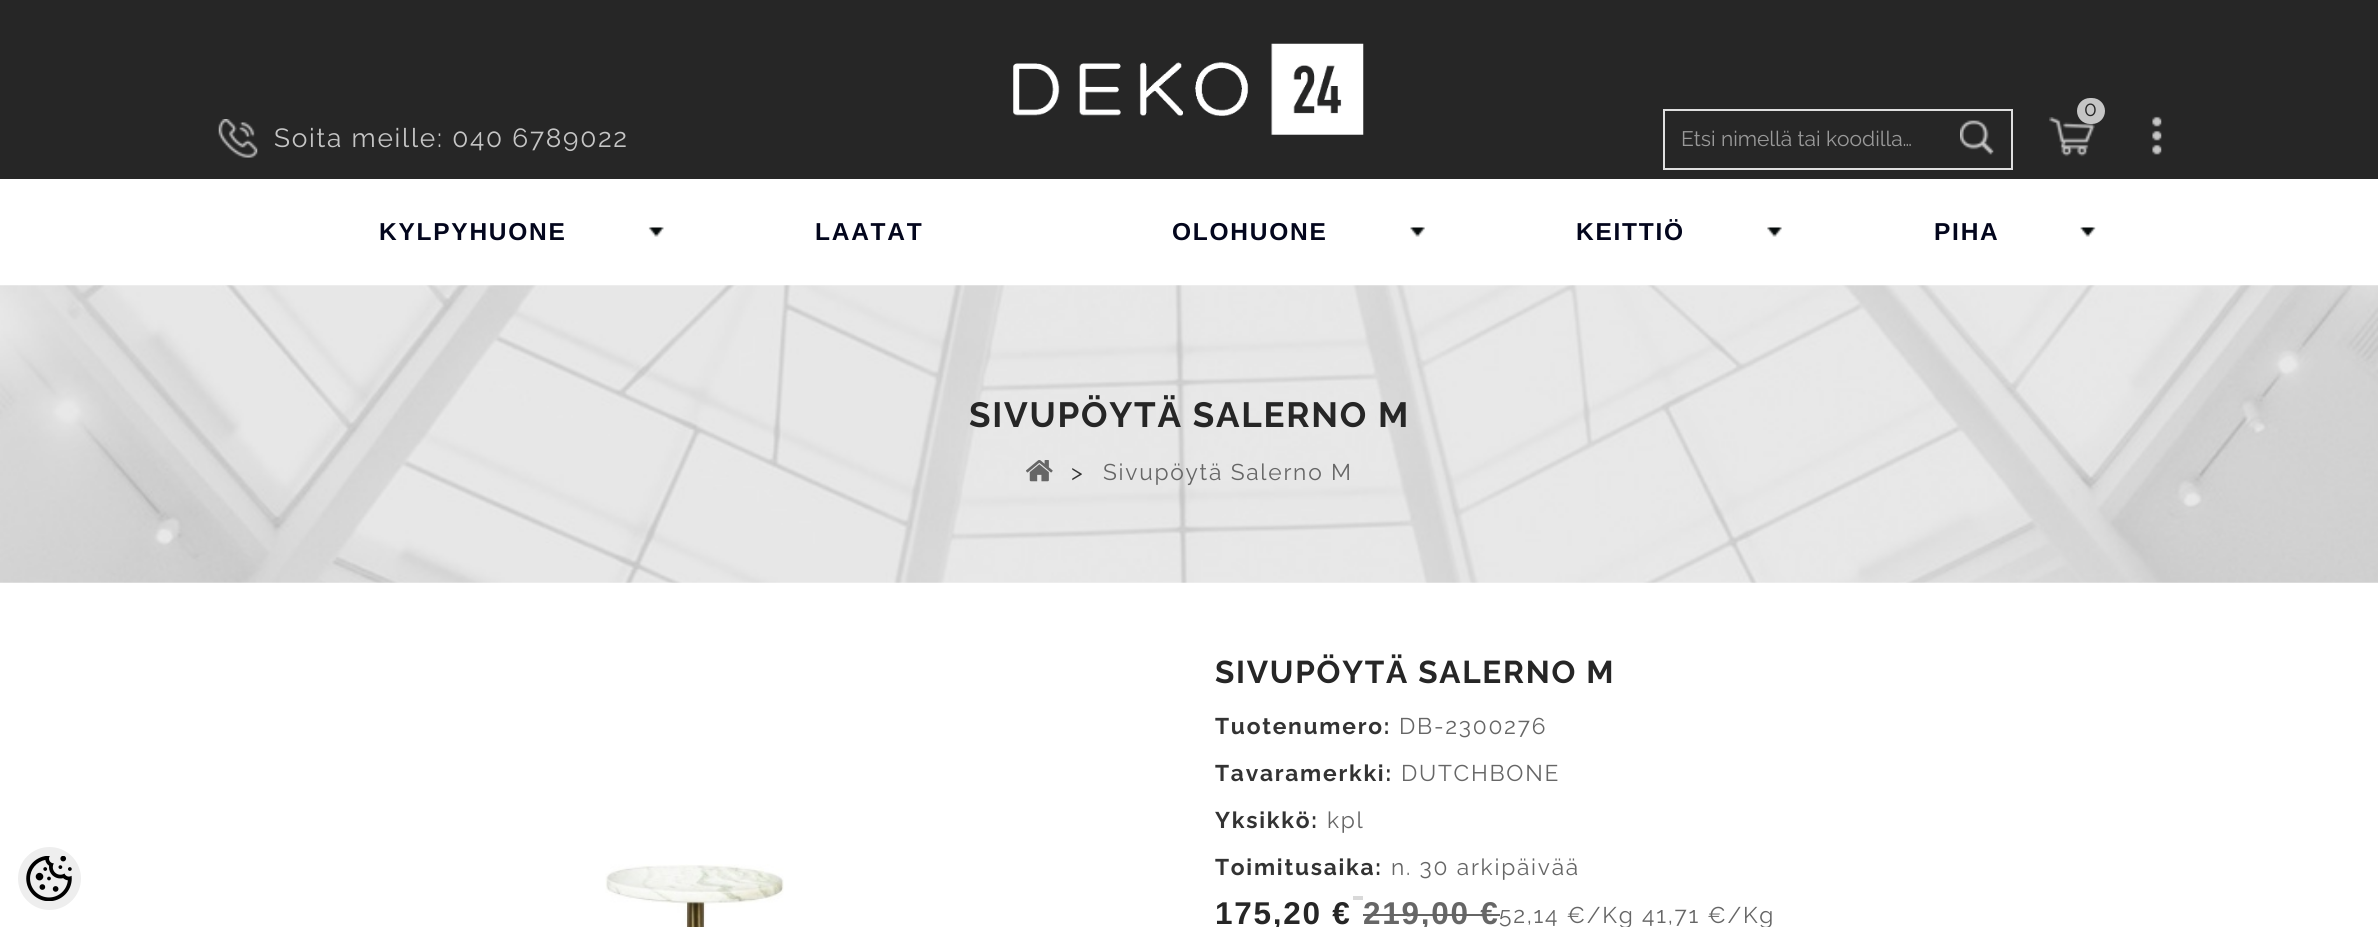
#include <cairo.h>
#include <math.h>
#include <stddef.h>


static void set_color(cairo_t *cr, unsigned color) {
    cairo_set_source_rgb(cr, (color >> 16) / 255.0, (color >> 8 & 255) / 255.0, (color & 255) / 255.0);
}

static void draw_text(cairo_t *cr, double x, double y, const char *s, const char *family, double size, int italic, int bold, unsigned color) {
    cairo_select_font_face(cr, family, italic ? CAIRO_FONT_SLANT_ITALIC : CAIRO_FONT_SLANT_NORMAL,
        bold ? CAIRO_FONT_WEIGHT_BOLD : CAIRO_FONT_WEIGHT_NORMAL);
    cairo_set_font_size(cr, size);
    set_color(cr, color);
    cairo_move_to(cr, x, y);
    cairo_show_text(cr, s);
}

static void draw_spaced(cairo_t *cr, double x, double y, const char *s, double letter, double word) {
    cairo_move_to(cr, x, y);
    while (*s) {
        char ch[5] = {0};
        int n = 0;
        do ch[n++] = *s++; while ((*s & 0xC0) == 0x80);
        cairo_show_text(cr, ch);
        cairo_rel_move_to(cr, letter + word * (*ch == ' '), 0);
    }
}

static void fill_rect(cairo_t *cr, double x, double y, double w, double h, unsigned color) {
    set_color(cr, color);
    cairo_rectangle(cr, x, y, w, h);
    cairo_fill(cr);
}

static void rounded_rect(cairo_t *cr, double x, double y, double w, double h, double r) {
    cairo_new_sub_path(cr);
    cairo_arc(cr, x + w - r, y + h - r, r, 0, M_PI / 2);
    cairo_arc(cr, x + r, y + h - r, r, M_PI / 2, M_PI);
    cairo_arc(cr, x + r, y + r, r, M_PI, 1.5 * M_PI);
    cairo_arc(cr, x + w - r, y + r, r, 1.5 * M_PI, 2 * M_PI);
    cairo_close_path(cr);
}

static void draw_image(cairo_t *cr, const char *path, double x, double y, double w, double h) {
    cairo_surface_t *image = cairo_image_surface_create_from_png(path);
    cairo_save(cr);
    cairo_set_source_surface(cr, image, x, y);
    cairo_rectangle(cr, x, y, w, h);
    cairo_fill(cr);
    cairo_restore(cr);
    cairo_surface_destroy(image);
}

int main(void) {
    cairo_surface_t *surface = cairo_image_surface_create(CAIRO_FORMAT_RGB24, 2378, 927);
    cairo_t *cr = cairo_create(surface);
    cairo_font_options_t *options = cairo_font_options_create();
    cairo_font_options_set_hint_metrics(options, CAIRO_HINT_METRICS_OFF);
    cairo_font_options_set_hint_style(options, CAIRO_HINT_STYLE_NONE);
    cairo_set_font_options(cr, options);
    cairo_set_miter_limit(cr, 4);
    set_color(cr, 0xFFFFFF);
    cairo_paint(cr);
    set_color(cr, 0xEEEEEE);
    cairo_arc(cr, 49.5, 878.5, 31.5, 0, 2 * M_PI);
    cairo_fill(cr);
    draw_image(cr, "assets/img1.png", 26, 856, 46, 45);
    fill_rect(cr, 0, 0, 2378, 179, 0x262626);
    draw_image(cr, "assets/img2.png", 1013, 43, 351, 92);
    draw_image(cr, "assets/img3.png", 2049, 117, 46, 40);
    set_color(cr, 0xC5C5C5);
    rounded_rect(cr, 2077, 98, 28, 26, 13);
    cairo_fill(cr);
    draw_text(cr, 2084, 116, "0", "Raleway", 21, 0, 0, 0x262626);
    draw_image(cr, "assets/img4.png", 218, 119, 40, 39);
    cairo_set_font_size(cr, 26.25);
    set_color(cr, 0xC5C5C5);
    draw_spaced(cr, 274, 147, "Soita meille: 040 6789022", 1.75, 0);
    cairo_rectangle(cr, 1664, 110, 348, 59);
    set_color(cr, 0xDFDFDF);
    cairo_stroke(cr);
    draw_text(cr, 1681, 146, "Etsi nimellä tai koodilla…", "Raleway", 21, 0, 0, 0x999999);
    draw_image(cr, "assets/img5.png", 1960, 120, 34, 35);
    draw_image(cr, "assets/img6.png", 2152, 116, 10, 39);
    draw_image(cr, "assets/img7.png", 648, 227, 16, 10);
    cairo_select_font_face(cr, "Liberation Sans", CAIRO_FONT_SLANT_NORMAL, CAIRO_FONT_WEIGHT_BOLD);
    cairo_set_font_size(cr, 24.5);
    set_color(cr, 0x03061D);
    draw_spaced(cr, 379, 240, "KYLPYHUONE", 1.75, 0);
    draw_spaced(cr, 815, 240, "LAATAT", 1.75, 0);
    draw_image(cr, "assets/img8.png", 1410, 227, 15, 10);
    draw_spaced(cr, 1172, 240, "OLOHUONE", 1.75, 0);
    draw_image(cr, "assets/img9.png", 1767, 227, 15, 10);
    draw_spaced(cr, 1576, 240, "KEITTIÖ", 1.75, 0);
    draw_image(cr, "assets/img10.png", 2080, 227, 16, 10);
    draw_spaced(cr, 1934, 240, "PIHA", 1.75, 0);
    draw_image(cr, "assets/img11.png", 0, 285, 2378, 298);
    cairo_select_font_face(cr, "Raleway", CAIRO_FONT_SLANT_NORMAL, CAIRO_FONT_WEIGHT_BOLD);
    cairo_set_font_size(cr, 35);
    set_color(cr, 0x262626);
    draw_spaced(cr, 969, 427, "SIVUPÖYTÄ SALERNO M", 1.75, 0);
    draw_image(cr, "assets/img12.png", 1026, 460, 27, 22);
    cairo_select_font_face(cr, "Raleway", CAIRO_FONT_SLANT_NORMAL, CAIRO_FONT_WEIGHT_NORMAL);
    cairo_set_font_size(cr, 22.75);
    set_color(cr, 0x333333);
    draw_spaced(cr, 1071, 480, ">", 1.75, 0);
    set_color(cr, 0x666666);
    draw_spaced(cr, 1103, 480, "Sivupöytä Salerno M", 1.75, 0);
    draw_image(cr, "assets/img13.png", 605, 864, 179, 63);
    cairo_select_font_face(cr, "Raleway", CAIRO_FONT_SLANT_NORMAL, CAIRO_FONT_WEIGHT_BOLD);
    cairo_set_font_size(cr, 31.5);
    set_color(cr, 0x262626);
    draw_spaced(cr, 1215, 683, "SIVUPÖYTÄ SALERNO M", 1.75, 0);
    cairo_set_font_size(cr, 22.75);
    set_color(cr, 0x333333);
    draw_spaced(cr, 1215, 734, "Tuotenumero:", 1.75, 0);
    cairo_select_font_face(cr, "Raleway", CAIRO_FONT_SLANT_NORMAL, CAIRO_FONT_WEIGHT_NORMAL);
    set_color(cr, 0x666666);
    draw_spaced(cr, 1399, 734, "DB-2300276", 1.75, 0);
    cairo_select_font_face(cr, "Raleway", CAIRO_FONT_SLANT_NORMAL, CAIRO_FONT_WEIGHT_BOLD);
    set_color(cr, 0x333333);
    draw_spaced(cr, 1215, 781, "Tavaramerkki:", 1.75, 0);
    cairo_select_font_face(cr, "Raleway", CAIRO_FONT_SLANT_NORMAL, CAIRO_FONT_WEIGHT_NORMAL);
    set_color(cr, 0x666666);
    draw_spaced(cr, 1401, 781, "DUTCHBONE", 1.75, 0);
    cairo_select_font_face(cr, "Raleway", CAIRO_FONT_SLANT_NORMAL, CAIRO_FONT_WEIGHT_BOLD);
    set_color(cr, 0x333333);
    draw_spaced(cr, 1215, 828, "Yksikkö:", 1.75, 0);
    cairo_select_font_face(cr, "Raleway", CAIRO_FONT_SLANT_NORMAL, CAIRO_FONT_WEIGHT_NORMAL);
    set_color(cr, 0x666666);
    draw_spaced(cr, 1327, 828, "kpl", 1.75, 0);
    cairo_select_font_face(cr, "Raleway", CAIRO_FONT_SLANT_NORMAL, CAIRO_FONT_WEIGHT_BOLD);
    set_color(cr, 0x333333);
    draw_spaced(cr, 1215, 875, "Toimitusaika:", 1.75, 0);
    cairo_select_font_face(cr, "Raleway", CAIRO_FONT_SLANT_NORMAL, CAIRO_FONT_WEIGHT_NORMAL);
    set_color(cr, 0x666666);
    draw_spaced(cr, 1391, 875, "n. 30 arkipäivää", 1.75, 0);
    fill_rect(cr, 1353, 896, 10, 4, 0xD9D9D9);
    cairo_select_font_face(cr, "Liberation Sans", CAIRO_FONT_SLANT_NORMAL, CAIRO_FONT_WEIGHT_BOLD);
    cairo_set_font_size(cr, 31.5);
    set_color(cr, 0x262626);
    draw_spaced(cr, 1215, 924, "175,20 €", 1.75, 0);
    set_color(cr, 0x666666);
    draw_spaced(cr, 1363, 924, "219,00 €", 1.75, 0);
    fill_rect(cr, 1363, 914, 137, 2, 0x666666);
    cairo_select_font_face(cr, "Raleway", CAIRO_FONT_SLANT_NORMAL, CAIRO_FONT_WEIGHT_NORMAL);
    cairo_set_font_size(cr, 22.75);
    draw_spaced(cr, 1499, 923, "52,14 €/Kg 41,71 €/Kg", 1.75, 0);
    cairo_surface_write_to_png(surface, "output.png");
    cairo_font_options_destroy(options);
    cairo_destroy(cr);
    cairo_surface_destroy(surface);
    return 0;
}
